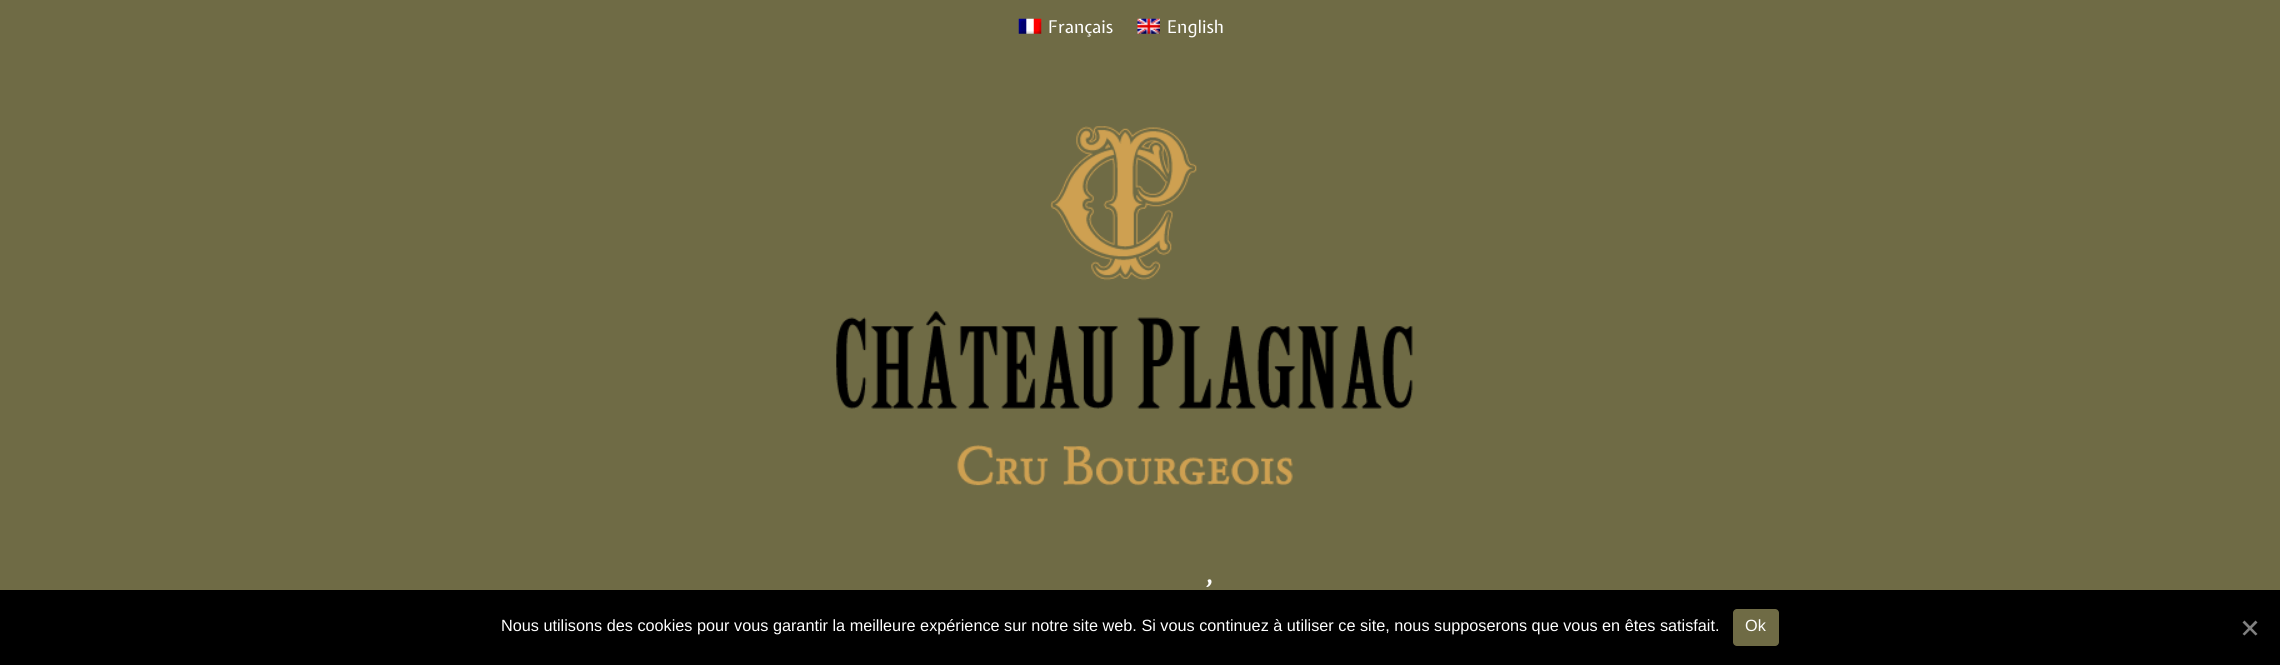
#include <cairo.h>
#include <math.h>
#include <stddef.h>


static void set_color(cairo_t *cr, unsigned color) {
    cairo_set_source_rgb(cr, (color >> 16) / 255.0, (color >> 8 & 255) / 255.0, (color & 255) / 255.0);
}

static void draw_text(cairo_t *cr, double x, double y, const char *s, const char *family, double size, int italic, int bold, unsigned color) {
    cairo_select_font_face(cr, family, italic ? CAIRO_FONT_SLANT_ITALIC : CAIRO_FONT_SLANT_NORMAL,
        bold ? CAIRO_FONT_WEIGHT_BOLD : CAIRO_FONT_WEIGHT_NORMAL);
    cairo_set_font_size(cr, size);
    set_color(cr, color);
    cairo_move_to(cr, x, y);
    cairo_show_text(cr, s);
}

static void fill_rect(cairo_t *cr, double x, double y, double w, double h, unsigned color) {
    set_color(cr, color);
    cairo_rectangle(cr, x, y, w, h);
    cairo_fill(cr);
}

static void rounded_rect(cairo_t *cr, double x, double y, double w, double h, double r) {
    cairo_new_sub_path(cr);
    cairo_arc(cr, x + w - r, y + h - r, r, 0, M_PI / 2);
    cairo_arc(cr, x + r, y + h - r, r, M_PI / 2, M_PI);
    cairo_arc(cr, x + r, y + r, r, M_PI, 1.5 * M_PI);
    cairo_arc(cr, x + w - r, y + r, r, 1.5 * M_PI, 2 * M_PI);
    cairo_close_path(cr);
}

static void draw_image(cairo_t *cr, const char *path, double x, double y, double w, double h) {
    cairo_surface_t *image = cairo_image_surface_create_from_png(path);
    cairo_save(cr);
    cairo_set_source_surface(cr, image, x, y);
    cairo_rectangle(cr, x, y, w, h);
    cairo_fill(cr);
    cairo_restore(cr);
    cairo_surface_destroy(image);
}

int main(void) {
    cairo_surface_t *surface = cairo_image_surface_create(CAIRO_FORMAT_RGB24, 2280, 665);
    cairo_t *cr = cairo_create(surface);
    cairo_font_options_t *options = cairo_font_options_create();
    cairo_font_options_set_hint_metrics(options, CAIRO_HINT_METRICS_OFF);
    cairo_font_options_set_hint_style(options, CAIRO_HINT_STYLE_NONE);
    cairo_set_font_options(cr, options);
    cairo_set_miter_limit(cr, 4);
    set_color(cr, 0x6F6B45);
    cairo_paint(cr);
    draw_image(cr, "assets/img1.png", 1018, 18, 24, 16);
    draw_text(cr, 1048, 33, "Français", "Expletus Sans", 17.5, 0, 0, 0xFFFFFF);
    draw_image(cr, "assets/img2.png", 1137, 18, 23, 16);
    draw_text(cr, 1167, 33, "English", "Expletus Sans", 17.5, 0, 0, 0xFFFFFF);
    draw_image(cr, "assets/img3.png", 836, 126, 577, 360);
    draw_text(cr, 1202, 604, "’", "Courgette", 30, 0, 0, 0xFFFFFF);
    fill_rect(cr, 0, 590, 2280, 75, 0x000000);
    draw_text(cr, 501, 631, "Nous utilisons des cookies pour vous garantir la meilleure expérience sur notre site web. Si vous continuez à utiliser ce site, nous supposerons que vous en êtes satisfait.", "Liberation Sans", 16.25, 0, 0, 0xFFFFFF);
    set_color(cr, 0x6F6B45);
    rounded_rect(cr, 1733, 609, 46, 37, 4);
    cairo_fill(cr);
    draw_text(cr, 1745, 631, "Ok", "Liberation Sans", 16.25, 0, 0, 0xFFFFFF);
    set_color(cr, 0x808080);
    cairo_new_path(cr);
    cairo_move_to(cr, 2255.5, 620.5);
    cairo_line_to(cr, 2257.5, 622.5);
    cairo_line_to(cr, 2244.5, 635.5);
    cairo_line_to(cr, 2242.5, 634);
    cairo_close_path(cr);
    cairo_fill(cr);
    cairo_new_path(cr);
    cairo_move_to(cr, 2242.5, 622.5);
    cairo_line_to(cr, 2244.5, 620.5);
    cairo_line_to(cr, 2257.5, 634);
    cairo_line_to(cr, 2255.5, 635.5);
    cairo_close_path(cr);
    cairo_fill(cr);
    cairo_surface_write_to_png(surface, "output.png");
    cairo_font_options_destroy(options);
    cairo_destroy(cr);
    cairo_surface_destroy(surface);
    return 0;
}
